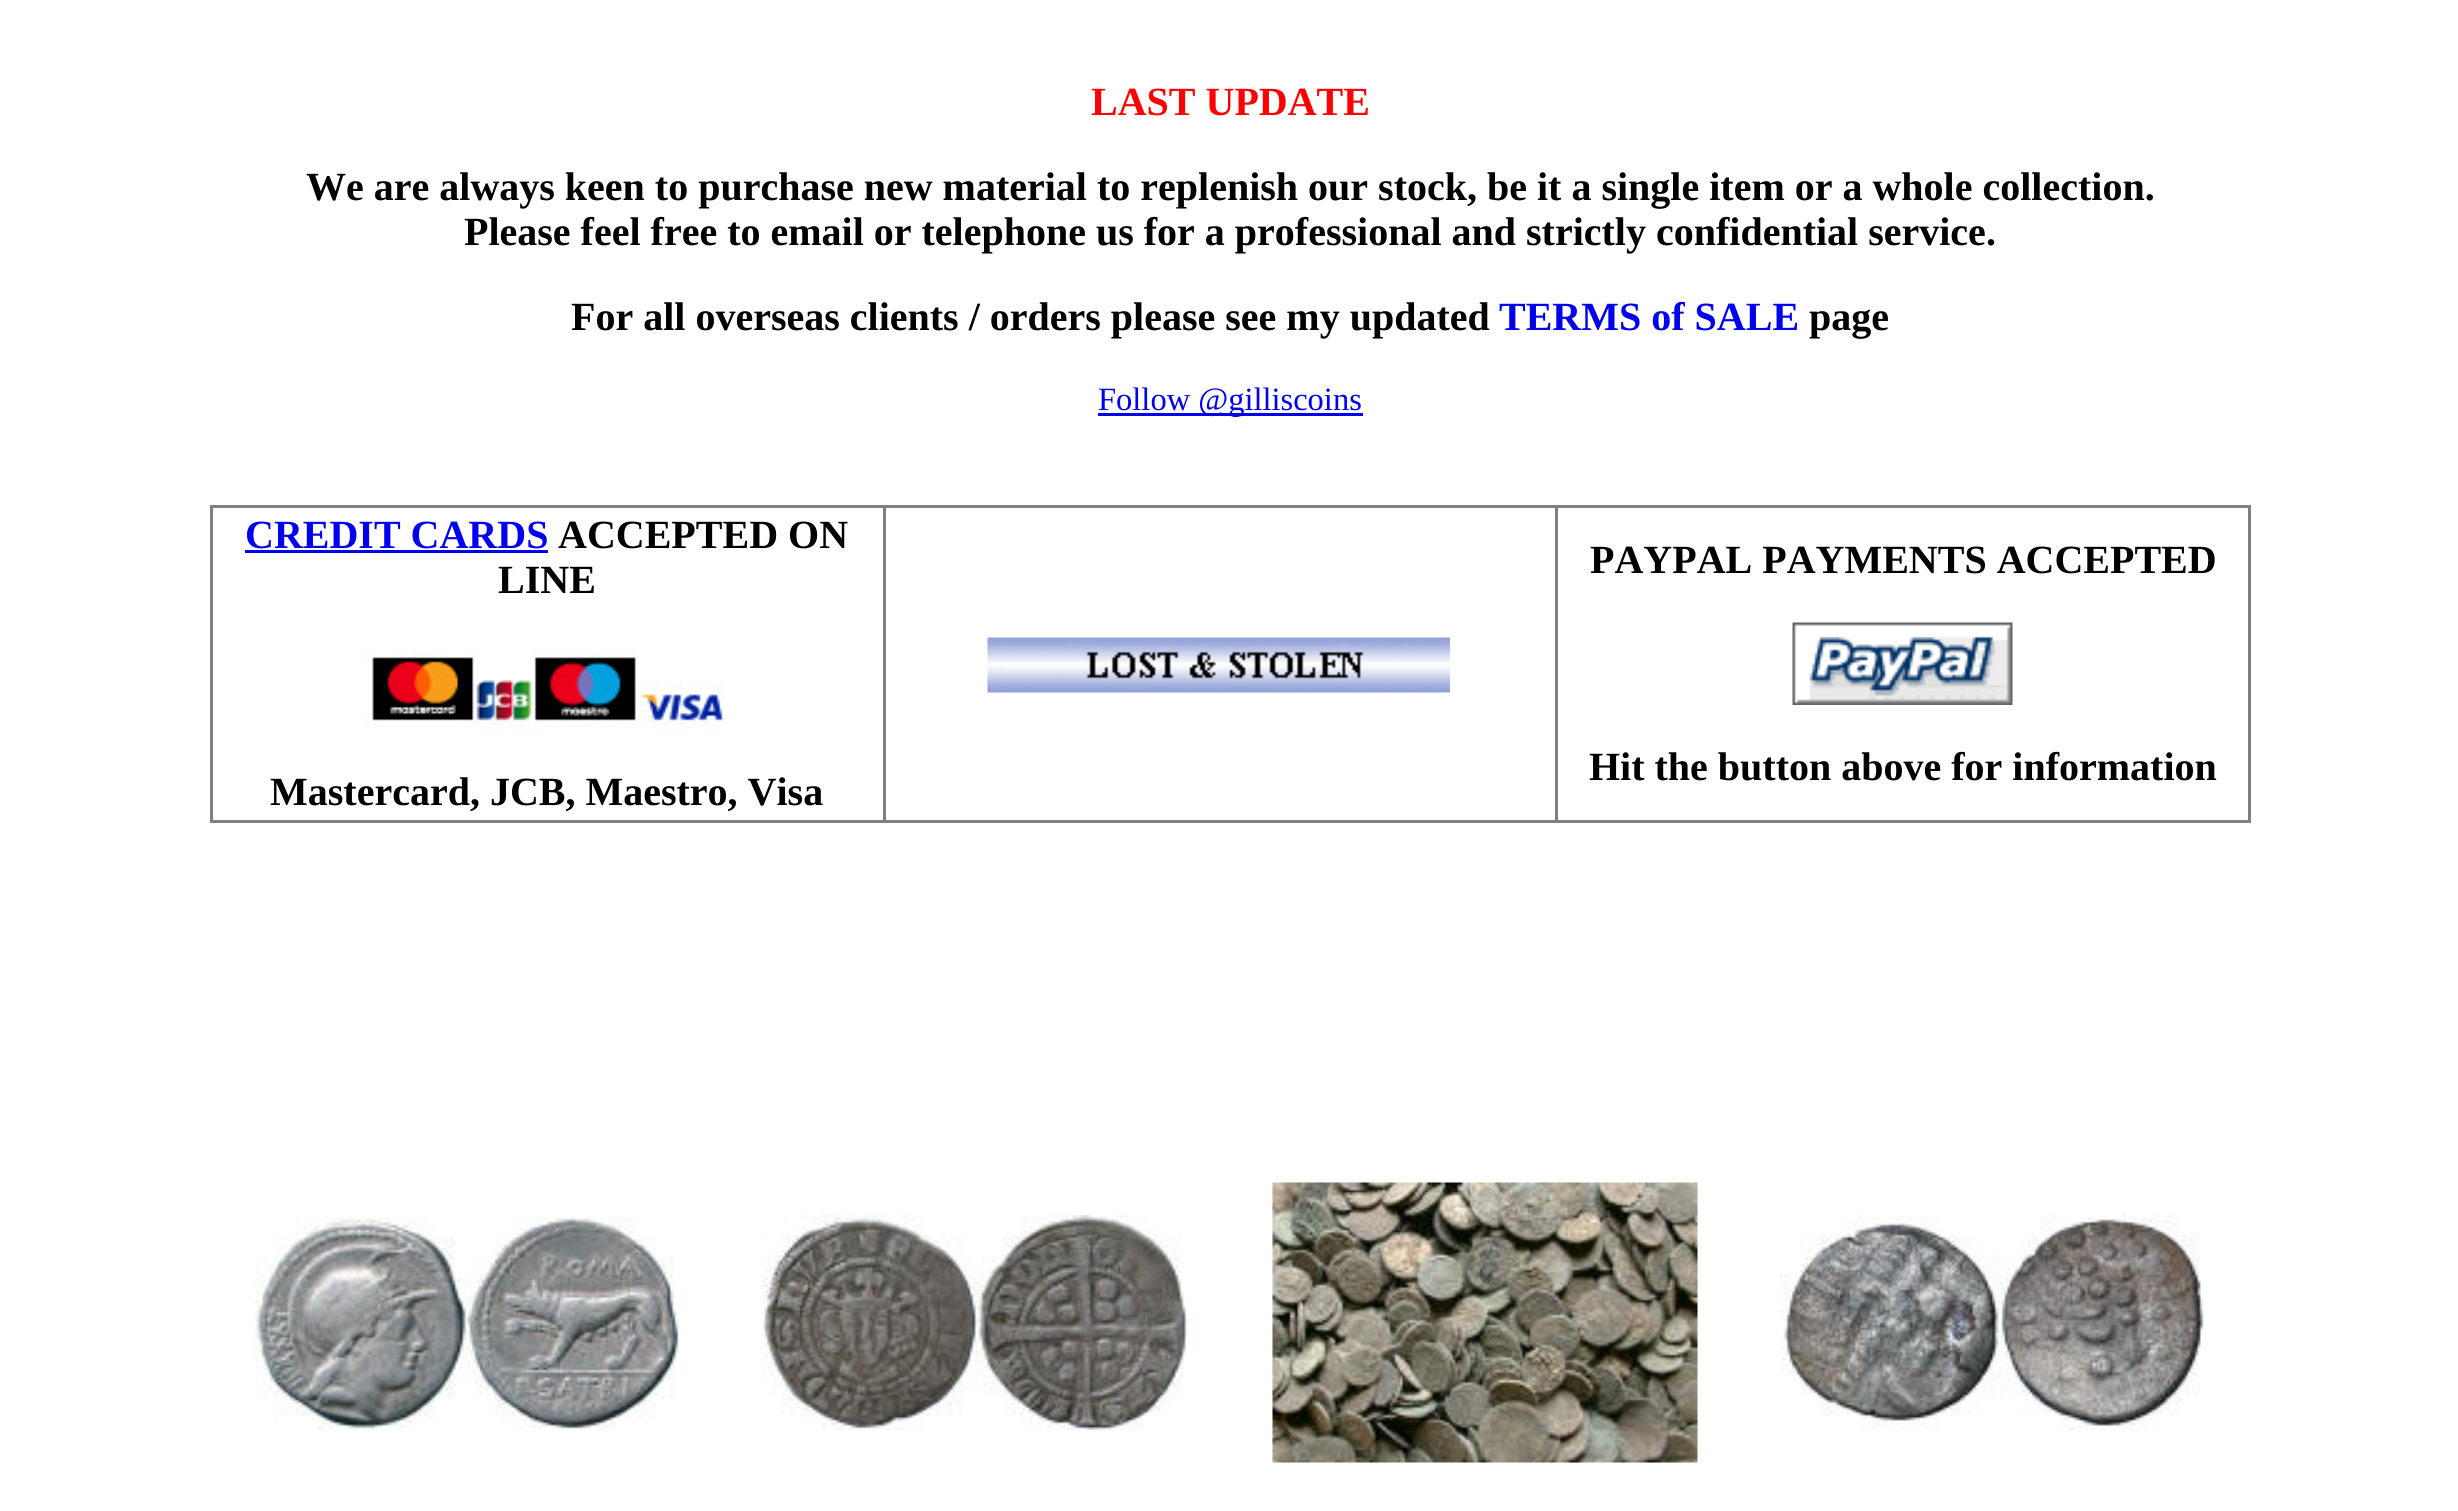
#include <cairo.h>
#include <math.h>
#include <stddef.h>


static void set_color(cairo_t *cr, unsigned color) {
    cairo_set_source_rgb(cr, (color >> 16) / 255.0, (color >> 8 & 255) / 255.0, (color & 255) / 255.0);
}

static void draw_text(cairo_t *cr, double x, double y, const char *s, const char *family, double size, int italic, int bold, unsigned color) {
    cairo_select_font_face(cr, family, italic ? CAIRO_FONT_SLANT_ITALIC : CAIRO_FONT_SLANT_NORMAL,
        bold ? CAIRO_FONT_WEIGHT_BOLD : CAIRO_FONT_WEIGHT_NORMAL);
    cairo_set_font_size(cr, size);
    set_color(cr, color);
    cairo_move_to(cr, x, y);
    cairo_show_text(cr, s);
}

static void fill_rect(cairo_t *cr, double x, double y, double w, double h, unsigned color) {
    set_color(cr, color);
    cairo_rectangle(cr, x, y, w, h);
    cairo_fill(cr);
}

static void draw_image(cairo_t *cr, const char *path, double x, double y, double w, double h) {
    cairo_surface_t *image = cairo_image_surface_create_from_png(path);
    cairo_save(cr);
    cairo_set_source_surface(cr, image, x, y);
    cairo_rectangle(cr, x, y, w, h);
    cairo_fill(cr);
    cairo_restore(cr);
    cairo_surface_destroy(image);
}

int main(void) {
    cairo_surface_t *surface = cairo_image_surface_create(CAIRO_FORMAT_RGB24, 2458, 1511);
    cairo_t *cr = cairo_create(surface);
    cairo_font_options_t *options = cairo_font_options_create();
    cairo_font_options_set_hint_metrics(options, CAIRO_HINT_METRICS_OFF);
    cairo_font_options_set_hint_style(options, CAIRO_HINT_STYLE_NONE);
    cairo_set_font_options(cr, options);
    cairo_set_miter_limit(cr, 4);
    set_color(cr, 0xFFFFFF);
    cairo_paint(cr);
    draw_text(cr, 1091, 115, "LAST UPDATE", "Liberation Serif", 40, 0, 1, 0xFF0000);
    draw_text(cr, 306, 200, "We are always keen to purchase new material to replenish our stock, be it a single item or a whole collection.", "Liberation Serif", 40, 0, 1, 0x000000);
    draw_text(cr, 464, 245, "Please feel free to email or telephone us for a professional and strictly confidential service.", "Liberation Serif", 40, 0, 1, 0x000000);
    draw_text(cr, 571, 330, "For all overseas clients / orders please see my updated", "Liberation Serif", 40, 0, 1, 0x000000);
    draw_text(cr, 1499, 330, "TERMS of SALE", "Liberation Serif", 40, 0, 1, 0x0000EE);
    draw_text(cr, 1809, 330, "page", "Liberation Serif", 40, 0, 1, 0x000000);
    fill_rect(cr, 1098, 413, 265, 3, 0x0000EE);
    draw_text(cr, 1098, 410, "Follow @gilliscoins", "Liberation Serif", 32.5, 0, 0, 0x0000EE);
    fill_rect(cr, 210, 505, 2040, 3, 0x808080);
    fill_rect(cr, 2248, 505, 3, 318, 0x808080);
    fill_rect(cr, 210, 820, 2040, 3, 0x808080);
    fill_rect(cr, 210, 505, 3, 318, 0x808080);
    draw_text(cr, 245, 548, "CREDIT CARDS", "Liberation Serif", 40, 0, 1, 0x0000EE);
    fill_rect(cr, 245, 550, 303, 3, 0x0000EE);
    draw_text(cr, 558, 548, "ACCEPTED ON", "Liberation Serif", 40, 0, 1, 0x000000);
    draw_text(cr, 498, 593, "LINE", "Liberation Serif", 40, 0, 1, 0x000000);
    draw_image(cr, "assets/img1.png", 363, 648, 362, 82);
    draw_text(cr, 270, 805, "Mastercard, JCB, Maestro, Visa", "Liberation Serif", 40, 0, 1, 0x000000);
    fill_rect(cr, 883, 505, 3, 318, 0x808080);
    draw_image(cr, "assets/img2.png", 987, 637, 463, 56);
    fill_rect(cr, 1555, 505, 3, 318, 0x808080);
    draw_text(cr, 1590, 573, "PAYPAL PAYMENTS ACCEPTED", "Liberation Serif", 40, 0, 1, 0x000000);
    draw_image(cr, "assets/img3.png", 1792, 622, 221, 83);
    draw_text(cr, 1589, 780, "Hit the button above for information", "Liberation Serif", 40, 0, 1, 0x000000);
    draw_image(cr, "assets/img4.png", 255, 1217, 425, 213);
    draw_image(cr, "assets/img5.png", 762, 1215, 426, 215);
    draw_image(cr, "assets/img6.png", 1272, 1182, 426, 281);
    draw_image(cr, "assets/img7.png", 1780, 1215, 425, 215);
    cairo_surface_write_to_png(surface, "output.png");
    cairo_font_options_destroy(options);
    cairo_destroy(cr);
    cairo_surface_destroy(surface);
    return 0;
}
